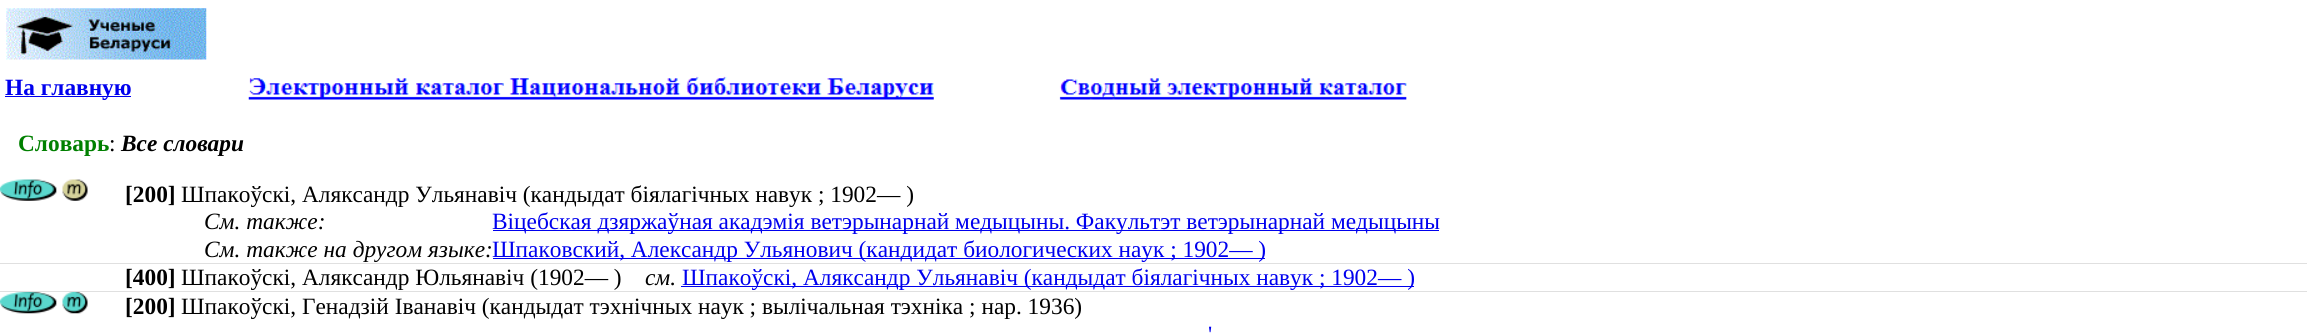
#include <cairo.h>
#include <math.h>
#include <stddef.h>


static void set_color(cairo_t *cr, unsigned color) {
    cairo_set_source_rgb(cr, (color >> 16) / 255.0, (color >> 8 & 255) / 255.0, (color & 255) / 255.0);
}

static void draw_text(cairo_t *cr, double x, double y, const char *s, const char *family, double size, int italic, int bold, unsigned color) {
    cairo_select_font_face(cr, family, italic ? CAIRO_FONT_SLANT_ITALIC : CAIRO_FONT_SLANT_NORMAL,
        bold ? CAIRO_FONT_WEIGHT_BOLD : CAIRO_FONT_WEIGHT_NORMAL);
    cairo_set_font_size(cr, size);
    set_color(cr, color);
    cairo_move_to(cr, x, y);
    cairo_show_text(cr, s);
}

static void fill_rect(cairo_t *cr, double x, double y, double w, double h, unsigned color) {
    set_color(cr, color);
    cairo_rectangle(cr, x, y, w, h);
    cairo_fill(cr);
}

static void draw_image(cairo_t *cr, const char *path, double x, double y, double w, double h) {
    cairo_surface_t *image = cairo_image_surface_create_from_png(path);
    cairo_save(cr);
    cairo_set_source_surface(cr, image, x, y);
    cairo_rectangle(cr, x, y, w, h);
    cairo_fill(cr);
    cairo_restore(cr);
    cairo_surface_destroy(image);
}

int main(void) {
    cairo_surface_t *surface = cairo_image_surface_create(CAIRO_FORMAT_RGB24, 2307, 334);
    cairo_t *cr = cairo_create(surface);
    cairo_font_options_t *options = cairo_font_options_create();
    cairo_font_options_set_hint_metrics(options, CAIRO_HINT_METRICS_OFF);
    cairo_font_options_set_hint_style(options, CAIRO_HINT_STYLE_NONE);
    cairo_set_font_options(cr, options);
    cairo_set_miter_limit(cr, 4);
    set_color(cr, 0xFFFFFF);
    cairo_paint(cr);
    draw_image(cr, "assets/img1.png", 6, 8, 201, 52);
    fill_rect(cr, 5, 96, 126, 1, 0x0000EE);
    draw_text(cr, 5, 95, "На главную", "Liberation Serif", 23.35, 0, 1, 0x0000EE);
    draw_image(cr, "assets/img2.png", 248, 76, 686, 24);
    draw_image(cr, "assets/img3.png", 1059, 78, 348, 22);
    draw_text(cr, 18, 151, "Словарь", "Liberation Serif", 23.35, 0, 1, 0x008000);
    draw_text(cr, 109, 151, ":", "Liberation Serif", 23.35, 0, 0, 0x000000);
    draw_text(cr, 121, 151, "Все словари", "Liberation Serif", 23.35, 1, 1, 0x000000);
    draw_image(cr, "assets/img4.png", 0, 179, 57, 22);
    draw_image(cr, "assets/img5.png", 62, 179, 26, 22);
    draw_text(cr, 125, 202, "[200]", "Liberation Serif", 23.35, 0, 1, 0x000000);
    fill_rect(cr, 0, 263, 2307, 1, 0xE0E0E0);
    draw_text(cr, 181, 202, "Шпакоўскі, Аляксандр Ульянавіч (кандыдат біялагічных навук ; 1902— )", "Liberation Serif", 23.35, 0, 0, 0x000000);
    draw_text(cr, 204, 229, "См. также:", "Liberation Serif", 23.35, 1, 0, 0x000000);
    fill_rect(cr, 493, 230, 946, 1, 0x0000EE);
    draw_text(cr, 492, 229, "Віцебская дзяржаўная акадэмія ветэрынарнай медыцыны. Факультэт ветэрынарнай медыцыны", "Liberation Serif", 23.35, 0, 0, 0x0000EE);
    draw_text(cr, 204, 257, "См. также на другом языке:", "Liberation Serif", 23.35, 1, 0, 0x000000);
    fill_rect(cr, 493, 258, 772, 1, 0x0000EE);
    draw_text(cr, 492, 257, "Шпаковский, Александр Ульянович (кандидат биологических наук ; 1902— )", "Liberation Serif", 23.35, 0, 0, 0x0000EE);
    draw_text(cr, 125, 285, "[400]", "Liberation Serif", 23.35, 0, 1, 0x000000);
    fill_rect(cr, 0, 291, 2307, 1, 0xE0E0E0);
    draw_text(cr, 181, 285, "Шпакоўскі, Аляксандр Юльянавіч (1902— )", "Liberation Serif", 23.35, 0, 0, 0x000000);
    draw_text(cr, 645, 285, "см.", "Liberation Serif", 23.35, 1, 0, 0x000000);
    fill_rect(cr, 681, 286, 733, 1, 0x0000EE);
    draw_text(cr, 682, 285, "Шпакоўскі, Аляксандр Ульянавіч (кандыдат біялагічных навук ; 1902— )", "Liberation Serif", 23.35, 0, 0, 0x0000EE);
    draw_image(cr, "assets/img6.png", 0, 292, 57, 22);
    draw_image(cr, "assets/img7.png", 62, 292, 26, 22);
    draw_text(cr, 125, 314, "[200]", "Liberation Serif", 23.35, 0, 1, 0x000000);
    draw_text(cr, 181, 314, "Шпакоўскі, Генадзій Іванавіч (кандыдат тэхнічных наук ; вылічальная тэхніка ; нар. 1936)", "Liberation Serif", 23.35, 0, 0, 0x000000);
    draw_text(cr, 1208, 342, "'", "Liberation Serif", 23.35, 0, 0, 0x0000EE);
    cairo_surface_write_to_png(surface, "output.png");
    cairo_font_options_destroy(options);
    cairo_destroy(cr);
    cairo_surface_destroy(surface);
    return 0;
}
